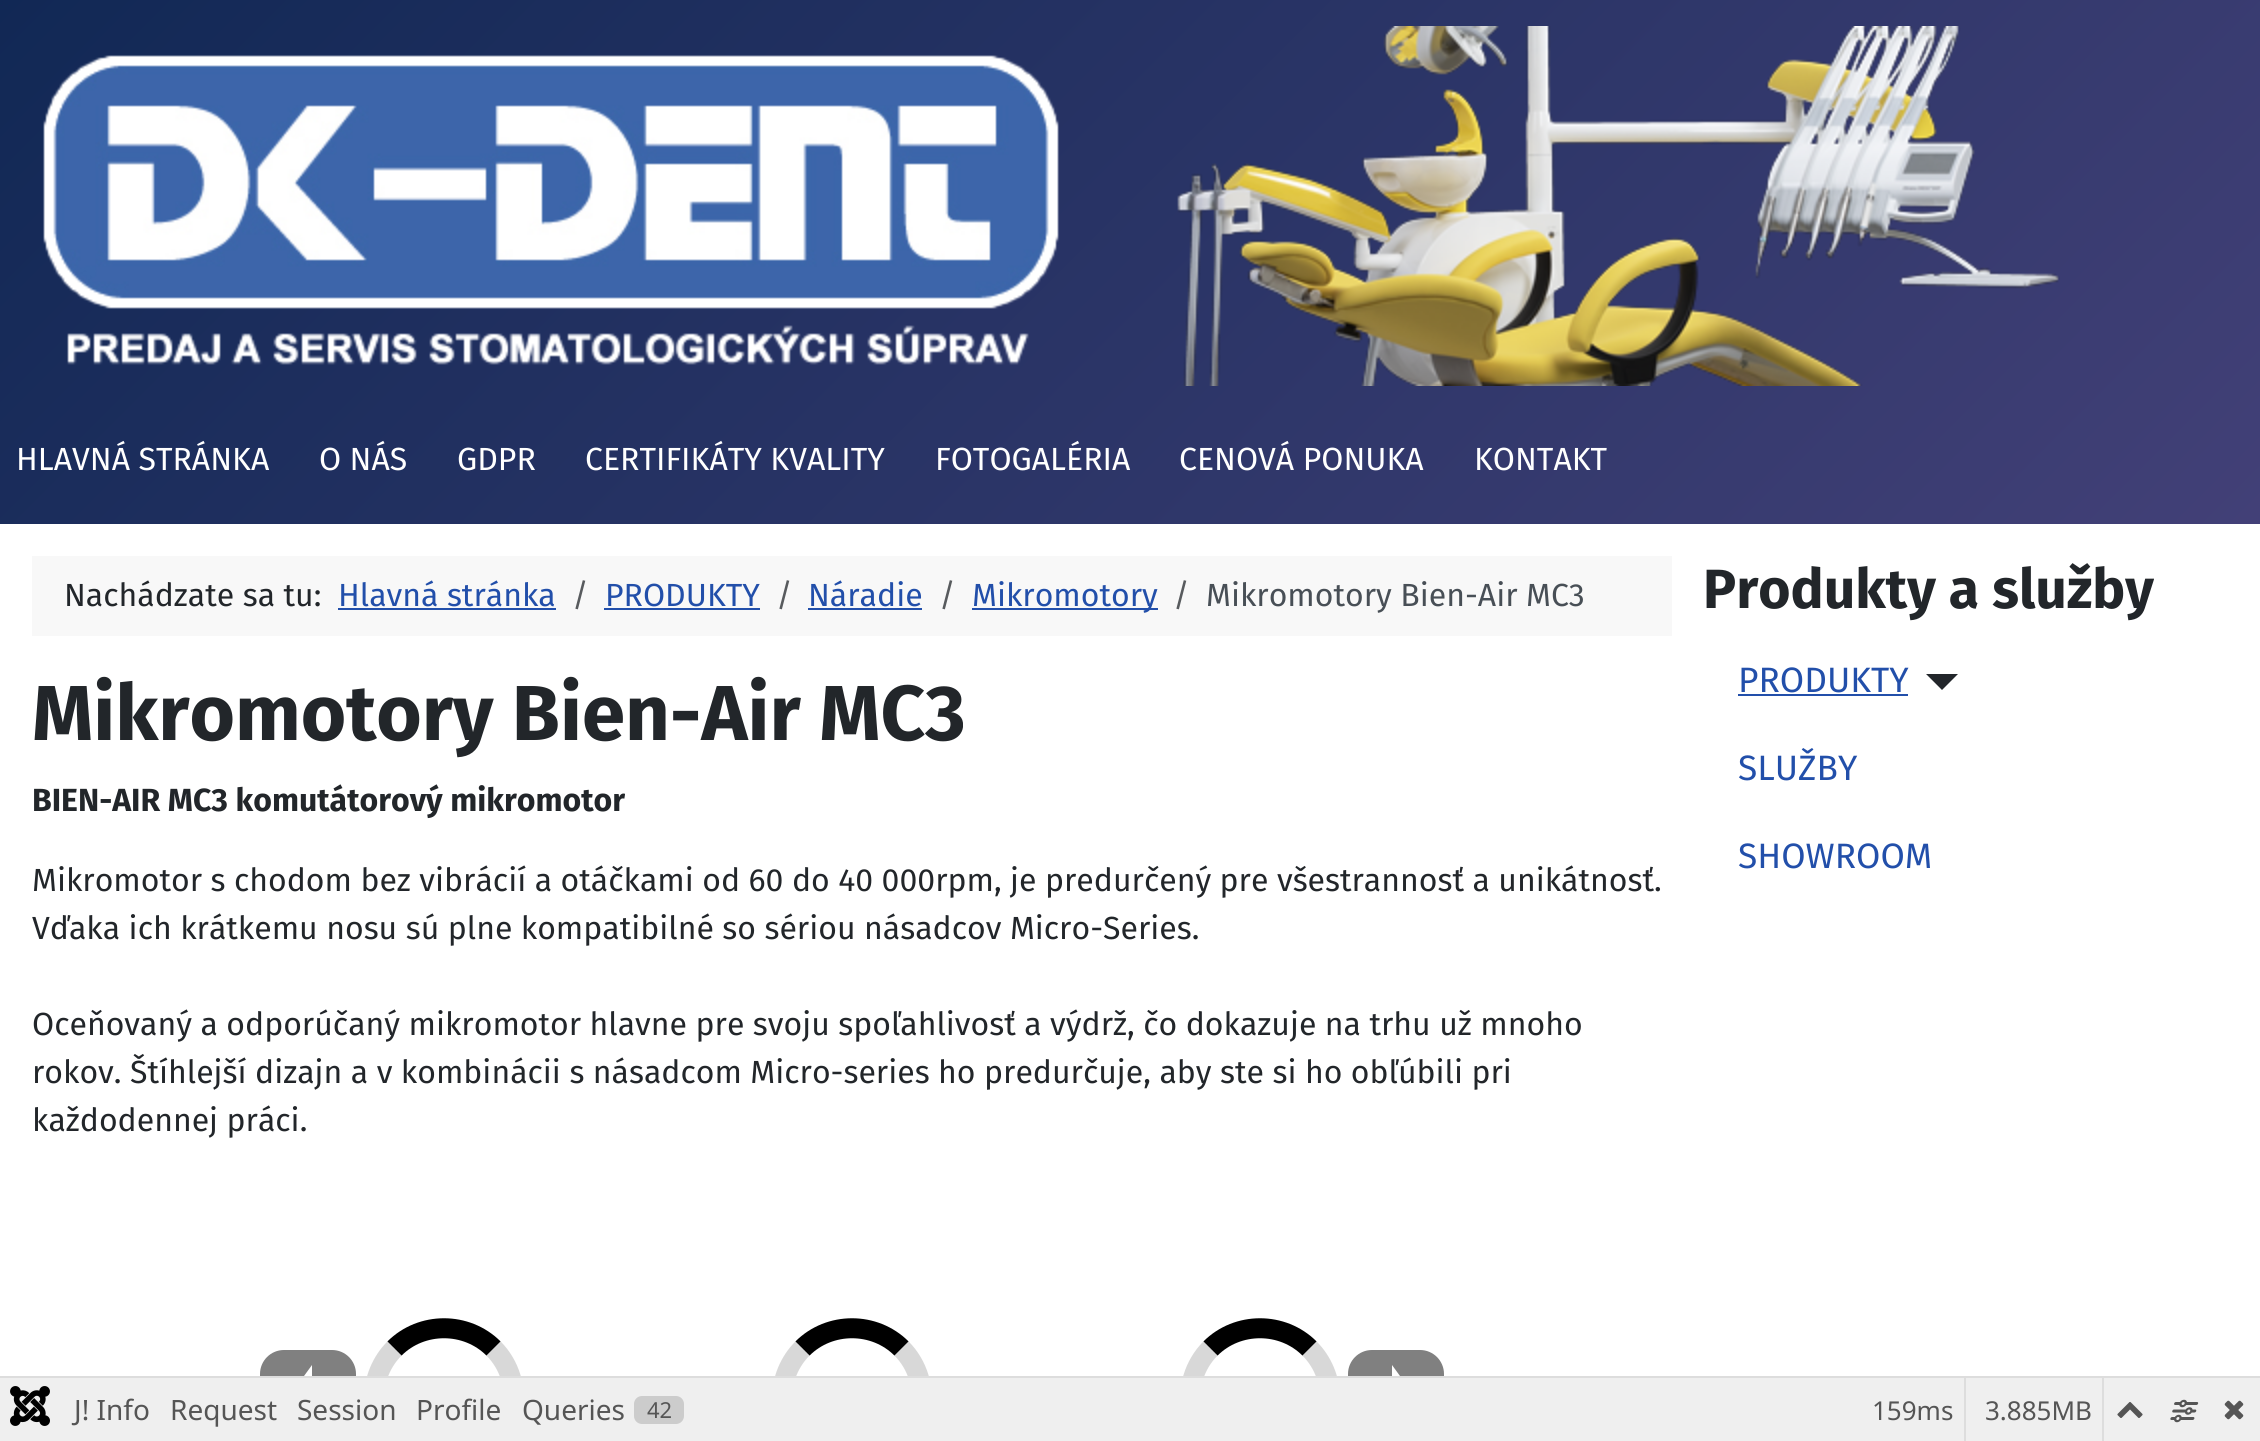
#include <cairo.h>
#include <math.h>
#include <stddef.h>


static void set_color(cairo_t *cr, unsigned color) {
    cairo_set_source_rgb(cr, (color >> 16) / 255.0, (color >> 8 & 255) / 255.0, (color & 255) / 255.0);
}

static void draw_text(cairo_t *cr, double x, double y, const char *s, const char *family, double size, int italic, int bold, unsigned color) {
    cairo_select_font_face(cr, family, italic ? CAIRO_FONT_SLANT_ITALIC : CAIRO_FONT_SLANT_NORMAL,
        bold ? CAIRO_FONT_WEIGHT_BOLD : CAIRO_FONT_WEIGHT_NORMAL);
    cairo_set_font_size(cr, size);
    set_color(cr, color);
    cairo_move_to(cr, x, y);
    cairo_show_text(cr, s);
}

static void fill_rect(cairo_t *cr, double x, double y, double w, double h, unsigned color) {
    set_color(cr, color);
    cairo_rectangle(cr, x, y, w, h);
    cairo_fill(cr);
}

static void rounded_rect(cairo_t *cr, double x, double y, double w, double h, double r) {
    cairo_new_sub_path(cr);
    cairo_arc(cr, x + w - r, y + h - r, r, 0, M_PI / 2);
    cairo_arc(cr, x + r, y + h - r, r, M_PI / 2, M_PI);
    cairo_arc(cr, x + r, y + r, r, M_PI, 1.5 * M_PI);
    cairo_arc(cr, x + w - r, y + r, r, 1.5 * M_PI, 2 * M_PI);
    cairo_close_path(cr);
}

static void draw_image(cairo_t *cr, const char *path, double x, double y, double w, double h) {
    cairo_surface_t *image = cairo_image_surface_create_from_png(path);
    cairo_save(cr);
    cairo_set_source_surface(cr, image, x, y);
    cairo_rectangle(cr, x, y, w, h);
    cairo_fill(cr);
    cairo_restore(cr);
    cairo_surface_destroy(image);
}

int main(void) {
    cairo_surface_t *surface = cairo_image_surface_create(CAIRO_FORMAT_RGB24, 2260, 1441);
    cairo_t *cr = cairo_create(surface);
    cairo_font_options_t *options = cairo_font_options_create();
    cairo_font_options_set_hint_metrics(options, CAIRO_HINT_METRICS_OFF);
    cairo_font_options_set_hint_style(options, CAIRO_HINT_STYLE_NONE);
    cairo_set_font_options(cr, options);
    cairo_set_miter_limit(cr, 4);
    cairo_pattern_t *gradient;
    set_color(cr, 0xFFFFFF);
    cairo_paint(cr);
    gradient = cairo_pattern_create_linear(434, -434, 1826, 958);
    cairo_pattern_add_color_stop_rgba(gradient, 0, 0.067, 0.157, 0.333, 1);
    cairo_pattern_add_color_stop_rgba(gradient, 1, 0.259, 0.251, 0.467, 1);
    cairo_set_source(cr, gradient);
    cairo_pattern_destroy(gradient);
    cairo_rectangle(cr, 0, 0, 2260, 524);
    cairo_fill(cr);
    draw_image(cr, "assets/img1.png", 43, 26, 2017, 360);
    draw_text(cr, 16, 470, "HLAVNÁ STRÁNKA", "Fira Sans", 32, 0, 0, 0xFFFFFF);
    draw_text(cr, 319, 470, "O NÁS", "Fira Sans", 32, 0, 0, 0xFFFFFF);
    draw_text(cr, 457, 470, "GDPR", "Fira Sans", 32, 0, 0, 0xFFFFFF);
    draw_text(cr, 585, 470, "CERTIFIKÁTY KVALITY", "Fira Sans", 32, 0, 0, 0xFFFFFF);
    draw_text(cr, 935, 470, "FOTOGALÉRIA", "Fira Sans", 32, 0, 0, 0xFFFFFF);
    draw_text(cr, 1179, 470, "CENOVÁ PONUKA", "Fira Sans", 32, 0, 0, 0xFFFFFF);
    draw_text(cr, 1474, 470, "KONTAKT", "Fira Sans", 32, 0, 0, 0xFFFFFF);
    fill_rect(cr, 32, 556, 1640, 80, 0xF8F8F8);
    draw_text(cr, 64, 606, "Nachádzate sa tu:", "Fira Sans", 32, 0, 0, 0x22262A);
    draw_text(cr, 338, 606, "Hlavná stránka", "Fira Sans", 32, 0, 0, 0x224FAA);
    fill_rect(cr, 338, 608, 218, 2, 0x224FAA);
    draw_text(cr, 572, 606, "/", "Fira Sans", 32, 0, 0, 0x585B5E);
    draw_text(cr, 605, 606, "PRODUKTY", "Fira Sans", 32, 0, 0, 0x224FAA);
    fill_rect(cr, 604, 608, 156, 2, 0x224FAA);
    draw_text(cr, 776, 606, "/", "Fira Sans", 32, 0, 0, 0x585B5E);
    draw_text(cr, 808, 606, "Náradie", "Fira Sans", 32, 0, 0, 0x224FAA);
    fill_rect(cr, 808, 608, 114, 2, 0x224FAA);
    draw_text(cr, 939, 606, "/", "Fira Sans", 32, 0, 0, 0x585B5E);
    fill_rect(cr, 972, 608, 186, 2, 0x224FAA);
    draw_text(cr, 972, 606, "Mikromotory", "Fira Sans", 32, 0, 0, 0x224FAA);
    draw_text(cr, 1173, 606, "/", "Fira Sans", 32, 0, 0, 0x585B5E);
    draw_text(cr, 1206, 606, "Mikromotory Bien-Air MC3", "Fira Sans", 32, 0, 0, 0x484F56);
    draw_text(cr, 32, 740, "Mikromotory Bien-Air MC3", "Fira Sans", 77.9, 0, 1, 0x22262A);
    draw_text(cr, 32, 811, "BIEN-AIR MC3 komutátorový mikromotor", "Fira Sans", 32, 0, 1, 0x22262A);
    draw_text(cr, 32, 891, "Mikromotor s chodom bez vibrácií a otáčkami od 60 do 40 000rpm, je predurčený pre všestrannosť a unikátnosť.", "Fira Sans", 32, 0, 0, 0x22262A);
    draw_text(cr, 32, 939, "Vďaka ich krátkemu nosu sú plne kompatibilné so sériou násadcov Micro-Series.", "Fira Sans", 32, 0, 0, 0x22262A);
    draw_text(cr, 32, 1035, "Oceňovaný a odporúčaný mikromotor hlavne pre svoju spoľahlivosť a výdrž, čo dokazuje na trhu už mnoho", "Fira Sans", 32, 0, 0, 0x22262A);
    draw_text(cr, 32, 1083, "rokov. Štíhlejší dizajn a v kombinácii s násadcom Micro-series ho predurčuje, aby ste si ho obľúbili pri", "Fira Sans", 32, 0, 0, 0x22262A);
    draw_text(cr, 32, 1131, "každodennej práci.", "Fira Sans", 32, 0, 0, 0x22262A);
    set_color(cr, 0x808080);
    rounded_rect(cr, 260, 1350, 96, 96, 24);
    cairo_fill(cr);
    set_color(cr, 0xFFFFFF);
    cairo_new_path(cr);
    cairo_move_to(cr, 312, 1385);
    cairo_line_to(cr, 328, 1385);
    cairo_line_to(cr, 328, 1412);
    cairo_line_to(cr, 312, 1412);
    cairo_close_path(cr);
    cairo_move_to(cr, 288, 1398);
    cairo_line_to(cr, 312, 1431);
    cairo_move_to(cr, 312, 1431);
    cairo_line_to(cr, 288, 1398);
    cairo_line_to(cr, 312, 1365);
    cairo_fill(cr);
    cairo_new_path(cr);
    cairo_move_to(cr, 394.5, 1348.5);
    cairo_curve_to(cr, 421.5, 1321.5, 466.5, 1321.5, 493.5, 1348.5);
    set_color(cr, 0x000000);
    cairo_set_line_width(cr, 20);
    cairo_stroke(cr);
    cairo_new_path(cr);
    cairo_move_to(cr, 493.5, 1348.5);
    cairo_curve_to(cr, 510, 1365, 517, 1389, 512.5, 1411.5);
    cairo_curve_to(cr, 510, 1425, 503, 1438, 493.5, 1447.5);
    cairo_curve_to(cr, 449.5, 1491, 374, 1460, 374, 1398);
    cairo_curve_to(cr, 374, 1379.5, 381.5, 1361.5, 394.5, 1348.5);
    cairo_set_source_rgba(cr, 0.251, 0.251, 0.251, 0.2);
    cairo_stroke(cr);
    cairo_new_path(cr);
    cairo_move_to(cr, 802.5, 1348.5);
    cairo_curve_to(cr, 829.5, 1321.5, 874.5, 1321.5, 901.5, 1348.5);
    set_color(cr, 0x000000);
    cairo_stroke(cr);
    cairo_new_path(cr);
    cairo_move_to(cr, 901.5, 1348.5);
    cairo_curve_to(cr, 918, 1365, 925, 1389, 920.5, 1411.5);
    cairo_curve_to(cr, 918, 1425, 911, 1438, 901.5, 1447.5);
    cairo_curve_to(cr, 857.5, 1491, 782, 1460, 782, 1398);
    cairo_curve_to(cr, 782, 1379.5, 789.5, 1361.5, 802.5, 1348.5);
    cairo_set_source_rgba(cr, 0.251, 0.251, 0.251, 0.2);
    cairo_stroke(cr);
    cairo_new_path(cr);
    cairo_move_to(cr, 1210.5, 1348.5);
    cairo_curve_to(cr, 1237.5, 1321.5, 1282.5, 1321.5, 1309.5, 1348.5);
    set_color(cr, 0x000000);
    cairo_stroke(cr);
    cairo_new_path(cr);
    cairo_move_to(cr, 1309.5, 1348.5);
    cairo_curve_to(cr, 1322.5, 1361.5, 1330, 1379.5, 1330, 1398);
    cairo_curve_to(cr, 1330, 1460, 1254.5, 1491, 1210.5, 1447.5);
    cairo_curve_to(cr, 1201, 1438, 1194, 1425, 1191.5, 1411.5);
    cairo_curve_to(cr, 1187, 1389, 1194, 1365, 1210.5, 1348.5);
    cairo_set_source_rgba(cr, 0.251, 0.251, 0.251, 0.2);
    cairo_stroke(cr);
    set_color(cr, 0x808080);
    rounded_rect(cr, 1348, 1350, 96, 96, 24);
    cairo_fill(cr);
    set_color(cr, 0xFFFFFF);
    cairo_new_path(cr);
    cairo_move_to(cr, 1392, 1385);
    cairo_line_to(cr, 1376, 1385);
    cairo_line_to(cr, 1376, 1412);
    cairo_line_to(cr, 1392, 1412);
    cairo_close_path(cr);
    cairo_move_to(cr, 1416, 1398);
    cairo_line_to(cr, 1392, 1431);
    cairo_move_to(cr, 1392, 1431);
    cairo_line_to(cr, 1416, 1398);
    cairo_line_to(cr, 1392, 1365);
    cairo_fill(cr);
    draw_text(cr, 1703, 608, "Produkty a služby", "Fira Sans", 55.25, 0, 1, 0x22262A);
    draw_text(cr, 1738, 692, "PRODUKTY", "Fira Sans", 35.25, 0, 0, 0x224FAA);
    fill_rect(cr, 1738, 694, 170, 2, 0x224FAA);
    set_color(cr, 0x22262A);
    cairo_new_path(cr);
    cairo_move_to(cr, 1926, 674);
    cairo_line_to(cr, 1958, 674);
    cairo_line_to(cr, 1942, 690);
    cairo_close_path(cr);
    cairo_fill(cr);
    draw_text(cr, 1738, 780, "SLUŽBY", "Fira Sans", 35.25, 0, 0, 0x224FAA);
    draw_text(cr, 1738, 868, "SHOWROOM", "Fira Sans", 35.25, 0, 0, 0x224FAA);
    fill_rect(cr, 0, 1376, 2260, 2, 0xDDDDDD);
    fill_rect(cr, 0, 1378, 2260, 63, 0xEFEFEF);
    draw_image(cr, "assets/img2.png", 10, 1386, 40, 40);
    draw_text(cr, 74, 1420, "J! Info", "Noto Sans", 28, 0, 0, 0x555555);
    draw_text(cr, 170, 1420, "Request", "Noto Sans", 28, 0, 0, 0x555555);
    draw_text(cr, 297, 1420, "Session", "Noto Sans", 28, 0, 0, 0x555555);
    draw_text(cr, 416, 1420, "Profile", "Noto Sans", 28, 0, 0, 0x555555);
    draw_text(cr, 522, 1420, "Queries", "Noto Sans", 28, 0, 0, 0x555555);
    set_color(cr, 0xCCCCCC);
    rounded_rect(cr, 634, 1396, 50, 28, 8);
    cairo_fill(cr);
    draw_text(cr, 647, 1418, "42", "Noto Sans", 22, 0, 0, 0x555555);
    fill_rect(cr, 1964, 1378, 2, 63, 0xDDDDDD);
    draw_text(cr, 1872, 1420, "159ms", "Noto Sans", 26, 0, 0, 0x555555);
    fill_rect(cr, 2102, 1378, 2, 63, 0xDDDDDD);
    draw_text(cr, 1985, 1420, "3.885MB", "Noto Sans", 26, 0, 0, 0x555555);
    draw_image(cr, "assets/img3.png", 2117, 1402, 26, 16);
    draw_image(cr, "assets/img4.png", 2170, 1399, 29, 24);
    draw_image(cr, "assets/img5.png", 2224, 1400, 20, 20);
    cairo_surface_write_to_png(surface, "output.png");
    cairo_font_options_destroy(options);
    cairo_destroy(cr);
    cairo_surface_destroy(surface);
    return 0;
}
